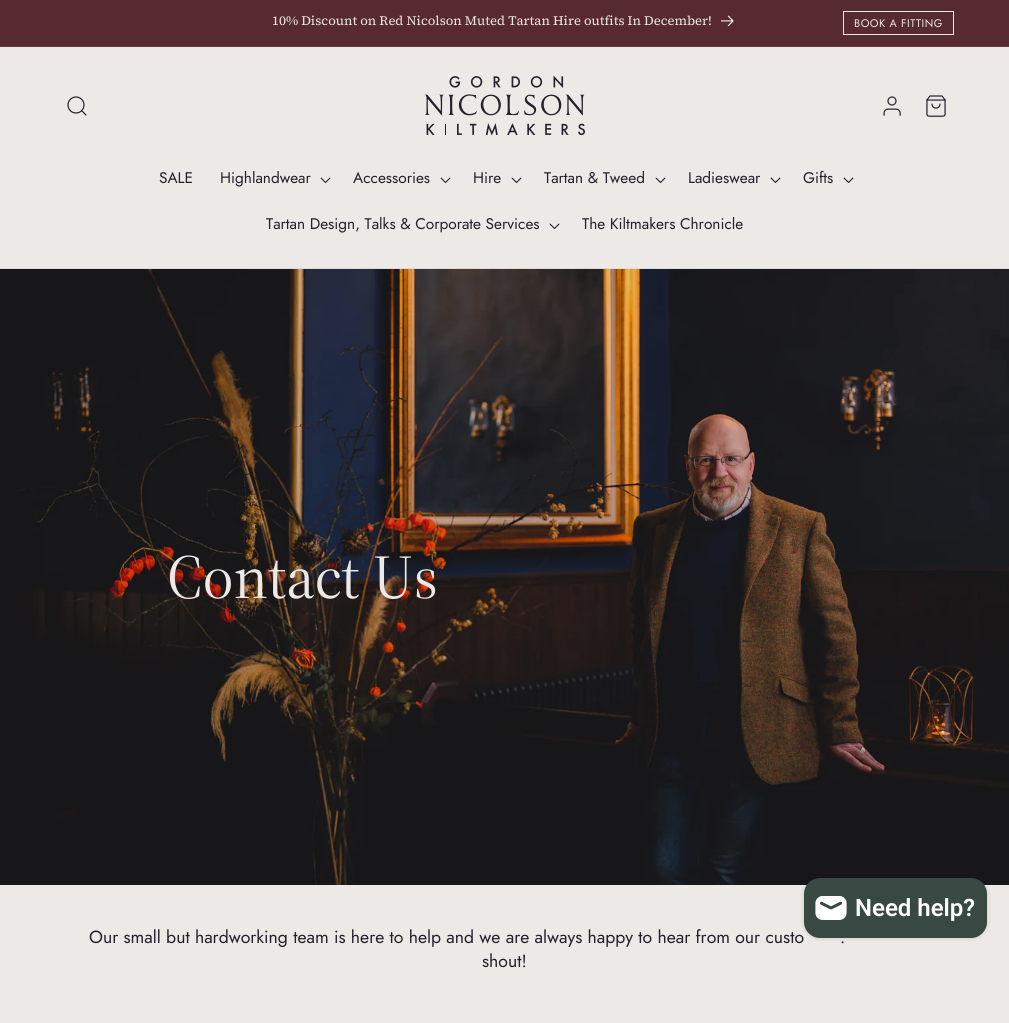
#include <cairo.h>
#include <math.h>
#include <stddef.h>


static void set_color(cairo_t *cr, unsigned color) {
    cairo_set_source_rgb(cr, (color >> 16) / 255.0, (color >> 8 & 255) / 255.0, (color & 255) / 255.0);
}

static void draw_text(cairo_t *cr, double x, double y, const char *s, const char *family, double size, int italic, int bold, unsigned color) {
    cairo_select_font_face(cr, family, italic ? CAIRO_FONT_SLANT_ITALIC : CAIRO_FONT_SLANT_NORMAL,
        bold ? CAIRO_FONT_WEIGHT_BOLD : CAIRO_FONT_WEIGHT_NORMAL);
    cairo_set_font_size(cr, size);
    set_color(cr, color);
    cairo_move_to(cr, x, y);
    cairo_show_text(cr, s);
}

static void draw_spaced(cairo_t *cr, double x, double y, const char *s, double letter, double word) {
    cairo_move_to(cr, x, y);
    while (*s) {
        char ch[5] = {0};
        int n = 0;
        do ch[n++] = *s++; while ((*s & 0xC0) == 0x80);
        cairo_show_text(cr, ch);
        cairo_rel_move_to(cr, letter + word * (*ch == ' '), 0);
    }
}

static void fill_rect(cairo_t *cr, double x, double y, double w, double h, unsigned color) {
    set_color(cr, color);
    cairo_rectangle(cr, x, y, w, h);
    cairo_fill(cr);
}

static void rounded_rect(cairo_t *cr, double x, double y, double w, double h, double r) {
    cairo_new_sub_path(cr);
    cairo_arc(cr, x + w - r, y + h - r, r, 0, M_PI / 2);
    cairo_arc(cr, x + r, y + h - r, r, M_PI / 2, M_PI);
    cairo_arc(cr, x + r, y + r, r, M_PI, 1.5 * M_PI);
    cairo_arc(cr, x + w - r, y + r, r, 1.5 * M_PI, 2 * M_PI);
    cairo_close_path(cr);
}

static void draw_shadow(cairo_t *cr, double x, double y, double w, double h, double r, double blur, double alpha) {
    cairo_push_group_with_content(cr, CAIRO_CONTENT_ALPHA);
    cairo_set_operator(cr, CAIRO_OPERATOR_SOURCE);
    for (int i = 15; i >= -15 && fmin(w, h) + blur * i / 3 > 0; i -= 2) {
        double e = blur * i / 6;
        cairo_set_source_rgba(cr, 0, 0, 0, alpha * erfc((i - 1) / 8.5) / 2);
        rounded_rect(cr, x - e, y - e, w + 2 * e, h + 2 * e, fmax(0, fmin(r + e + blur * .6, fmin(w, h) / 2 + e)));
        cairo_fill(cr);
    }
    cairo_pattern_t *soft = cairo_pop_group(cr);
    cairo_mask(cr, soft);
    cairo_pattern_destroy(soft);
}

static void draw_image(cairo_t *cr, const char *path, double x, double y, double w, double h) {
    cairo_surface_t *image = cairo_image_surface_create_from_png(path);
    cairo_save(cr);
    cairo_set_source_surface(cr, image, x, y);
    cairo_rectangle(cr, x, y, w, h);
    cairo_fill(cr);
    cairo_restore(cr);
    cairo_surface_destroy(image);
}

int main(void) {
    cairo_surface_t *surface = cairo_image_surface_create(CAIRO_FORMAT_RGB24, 1009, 1023);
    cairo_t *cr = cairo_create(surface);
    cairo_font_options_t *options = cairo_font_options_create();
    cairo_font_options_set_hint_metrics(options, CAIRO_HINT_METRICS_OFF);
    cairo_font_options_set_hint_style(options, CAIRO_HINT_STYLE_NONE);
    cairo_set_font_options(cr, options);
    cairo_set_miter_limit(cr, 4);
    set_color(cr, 0xECE9E6);
    cairo_paint(cr);
    fill_rect(cr, 0, 0, 1009, 46, 0x572A2F);
    fill_rect(cr, 0, 46, 1009, 1, 0x63393E);
    draw_text(cr, 272, 25, "10% Discount on Red Nicolson Muted Tartan Hire outfits In December!", "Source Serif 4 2", 13, 0, 0, 0xECE9E6);
    draw_image(cr, "assets/img1.png", 721, 15, 13, 12);
    cairo_rectangle(cr, 843.5, 11.5, 110, 23);
    cairo_set_line_width(cr, 1);
    cairo_stroke(cr);
    cairo_select_font_face(cr, "Jost", CAIRO_FONT_SLANT_NORMAL, CAIRO_FONT_WEIGHT_NORMAL);
    cairo_set_font_size(cr, 11);
    draw_spaced(cr, 854, 27, "BOOK A FITTING", 0.5, 0);
    fill_rect(cr, 0, 268, 1009, 1, 0xDCD9D7);
    cairo_new_path(cr);
    cairo_arc(cr, 76, 105, 8, 0, 2 * M_PI);
    set_color(cr, 0x241F2D);
    cairo_set_line_width(cr, 1.2);
    cairo_stroke(cr);
    cairo_new_path(cr);
    cairo_move_to(cr, 86, 115);
    cairo_line_to(cr, 82, 111);
    cairo_set_line_cap(cr, CAIRO_LINE_CAP_ROUND);
    cairo_set_line_join(cr, CAIRO_LINE_JOIN_ROUND);
    cairo_stroke(cr);
    draw_image(cr, "assets/img2.png", 425, 75, 160, 61);
    draw_image(cr, "assets/img3.png", 883, 96, 18, 20);
    draw_image(cr, "assets/img4.png", 926, 95, 20, 22);
    draw_text(cr, 159, 183, "SALE", "Jost", 15.4, 0, 0, 0x241F2D);
    draw_text(cr, 220, 183, "Highlandwear", "Jost", 15.4, 0, 0, 0x241F2D);
    draw_image(cr, "assets/img5.png", 320, 177, 11, 6);
    draw_text(cr, 353, 183, "Accessories", "Jost", 15.4, 0, 0, 0x241F2D);
    draw_image(cr, "assets/img5.png", 440, 177, 11, 6);
    draw_text(cr, 473, 183, "Hire", "Jost", 15.4, 0, 0, 0x241F2D);
    draw_image(cr, "assets/img5.png", 511, 177, 11, 6);
    draw_text(cr, 544, 183, "Tartan & Tweed", "Jost", 15.4, 0, 0, 0x241F2D);
    draw_image(cr, "assets/img5.png", 655, 177, 11, 6);
    draw_text(cr, 688, 183, "Ladieswear", "Jost", 15.4, 0, 0, 0x241F2D);
    draw_image(cr, "assets/img5.png", 770, 177, 11, 6);
    draw_text(cr, 803, 183, "Gifts", "Jost", 15.4, 0, 0, 0x241F2D);
    draw_image(cr, "assets/img5.png", 843, 177, 11, 6);
    draw_text(cr, 266, 229, "Tartan Design, Talks & Corporate Services", "Jost", 15.4, 0, 0, 0x241F2D);
    draw_image(cr, "assets/img5.png", 549, 223, 11, 6);
    draw_text(cr, 582, 229, "The Kiltmakers Chronicle", "Jost", 15.4, 0, 0, 0x241F2D);
    draw_image(cr, "assets/img6.png", 0, 269, 1009, 616);
    draw_text(cr, 167, 598, "Contact Us", "Source Serif 4", 62, 0, 0, 0xECE9E6);
    draw_text(cr, 89, 943, "Our small but hardworking team is here to help and we are always happy to hear from our custo", "Jost", 17.6, 0, 0, 0x241F2D);
    draw_text(cr, 840, 943, ".", "Jost", 17.6, 0, 0, 0x241F2D);
    draw_text(cr, 482, 967, "shout!", "Jost", 17.6, 0, 0, 0x241F2D);
    set_color(cr, 0x000000);
    draw_shadow(cr, 804, 878, 183, 60, 16, 2.5, 0.15);
    set_color(cr, 0x374942);
    rounded_rect(cr, 804, 878, 183, 60, 16);
    cairo_fill(cr);
    draw_image(cr, "assets/img7.png", 815, 896, 32, 24);
    draw_text(cr, 855, 916, "Need help?", "Roboto SemiBold", 24, 0, 0, 0xFFFFFF);
    cairo_surface_write_to_png(surface, "output.png");
    cairo_font_options_destroy(options);
    cairo_destroy(cr);
    cairo_surface_destroy(surface);
    return 0;
}
